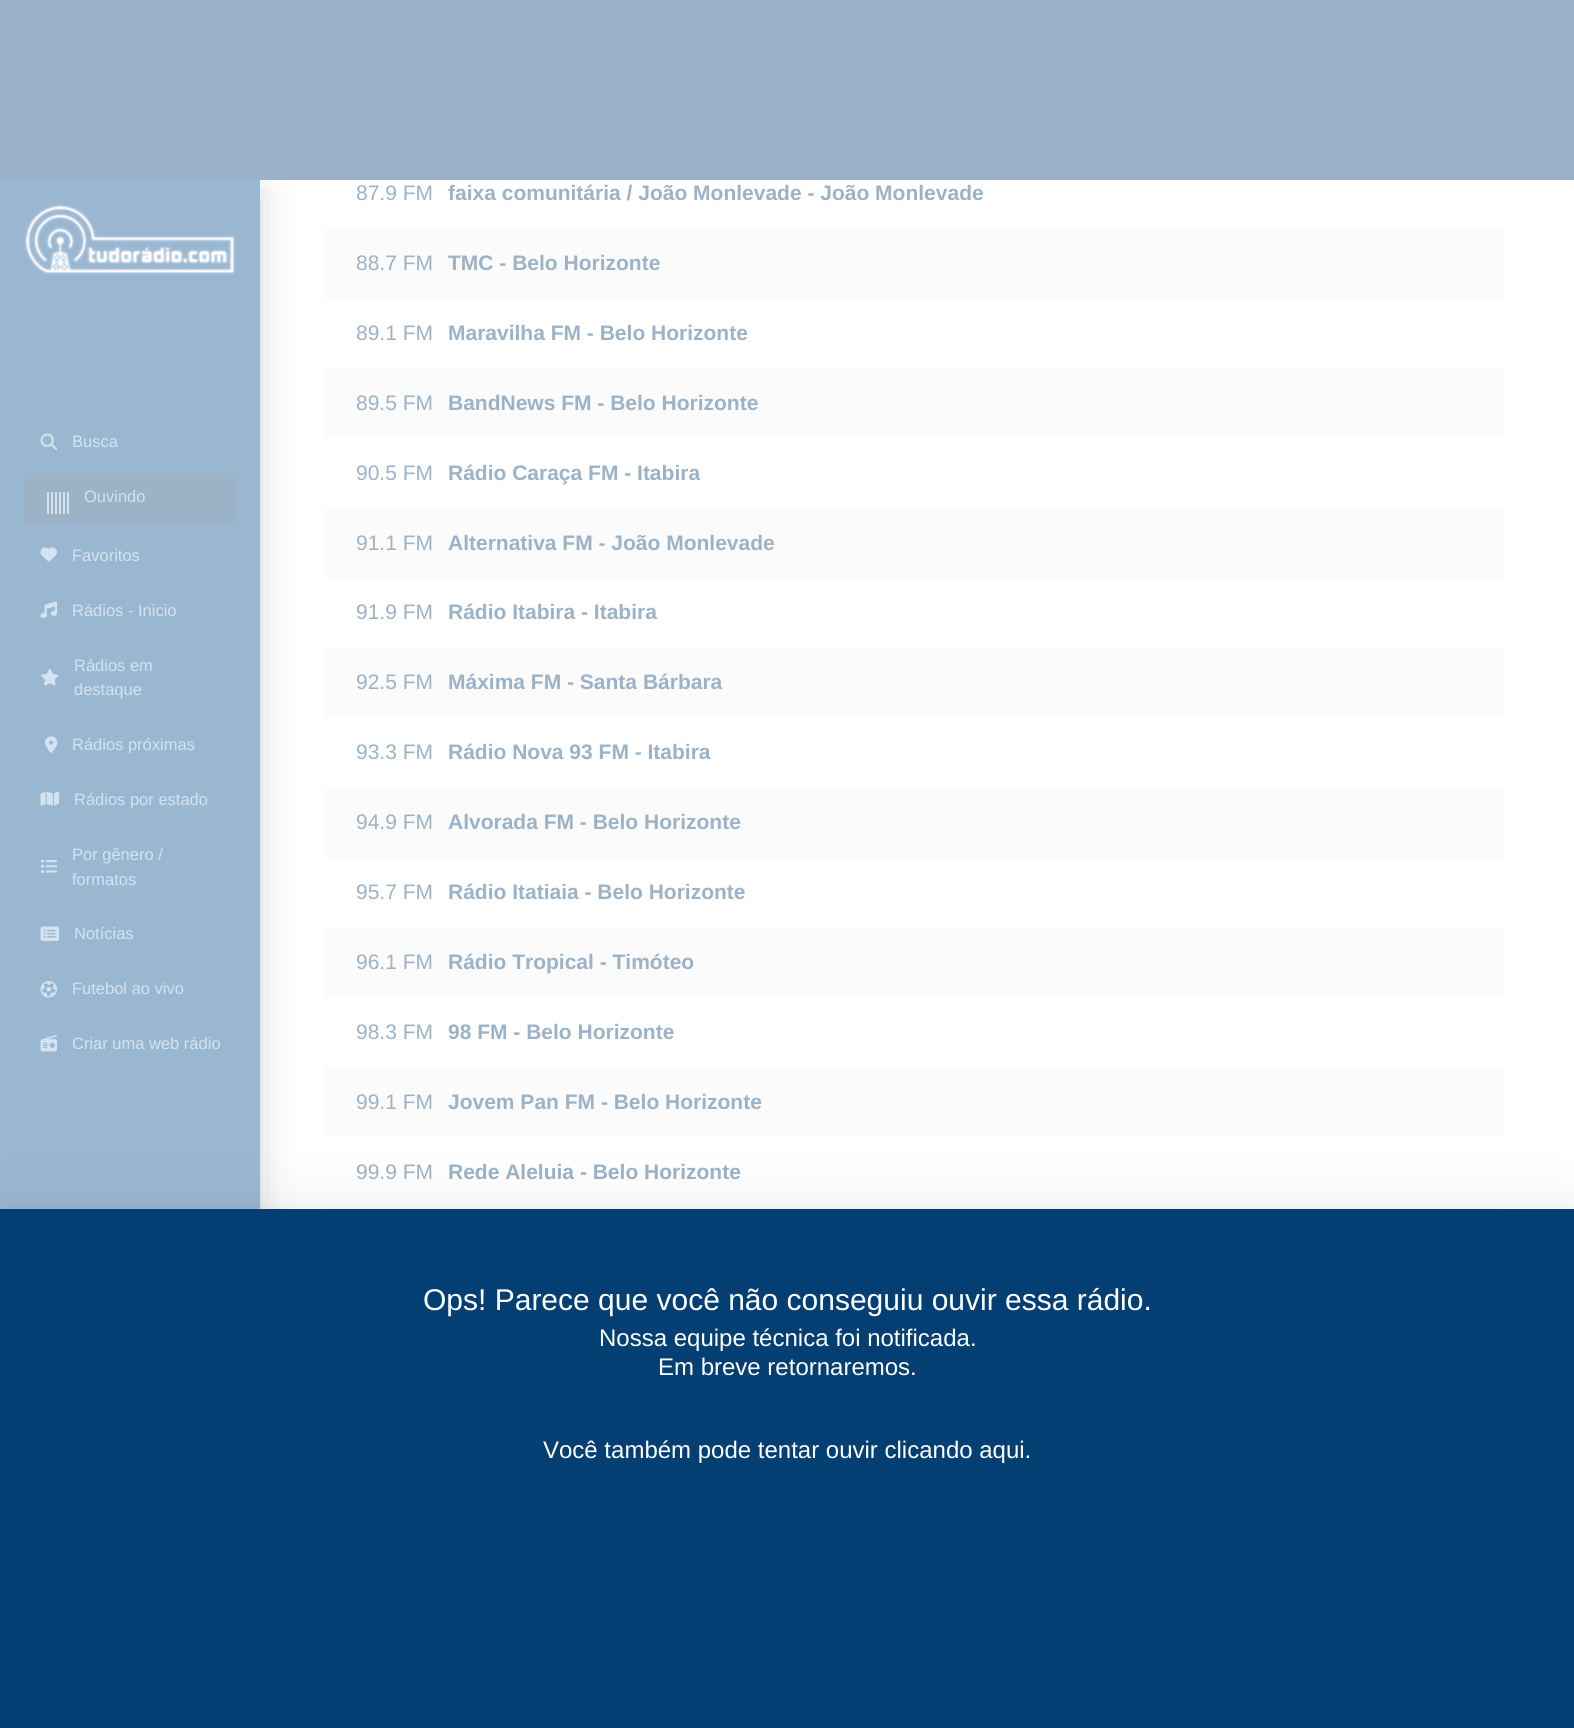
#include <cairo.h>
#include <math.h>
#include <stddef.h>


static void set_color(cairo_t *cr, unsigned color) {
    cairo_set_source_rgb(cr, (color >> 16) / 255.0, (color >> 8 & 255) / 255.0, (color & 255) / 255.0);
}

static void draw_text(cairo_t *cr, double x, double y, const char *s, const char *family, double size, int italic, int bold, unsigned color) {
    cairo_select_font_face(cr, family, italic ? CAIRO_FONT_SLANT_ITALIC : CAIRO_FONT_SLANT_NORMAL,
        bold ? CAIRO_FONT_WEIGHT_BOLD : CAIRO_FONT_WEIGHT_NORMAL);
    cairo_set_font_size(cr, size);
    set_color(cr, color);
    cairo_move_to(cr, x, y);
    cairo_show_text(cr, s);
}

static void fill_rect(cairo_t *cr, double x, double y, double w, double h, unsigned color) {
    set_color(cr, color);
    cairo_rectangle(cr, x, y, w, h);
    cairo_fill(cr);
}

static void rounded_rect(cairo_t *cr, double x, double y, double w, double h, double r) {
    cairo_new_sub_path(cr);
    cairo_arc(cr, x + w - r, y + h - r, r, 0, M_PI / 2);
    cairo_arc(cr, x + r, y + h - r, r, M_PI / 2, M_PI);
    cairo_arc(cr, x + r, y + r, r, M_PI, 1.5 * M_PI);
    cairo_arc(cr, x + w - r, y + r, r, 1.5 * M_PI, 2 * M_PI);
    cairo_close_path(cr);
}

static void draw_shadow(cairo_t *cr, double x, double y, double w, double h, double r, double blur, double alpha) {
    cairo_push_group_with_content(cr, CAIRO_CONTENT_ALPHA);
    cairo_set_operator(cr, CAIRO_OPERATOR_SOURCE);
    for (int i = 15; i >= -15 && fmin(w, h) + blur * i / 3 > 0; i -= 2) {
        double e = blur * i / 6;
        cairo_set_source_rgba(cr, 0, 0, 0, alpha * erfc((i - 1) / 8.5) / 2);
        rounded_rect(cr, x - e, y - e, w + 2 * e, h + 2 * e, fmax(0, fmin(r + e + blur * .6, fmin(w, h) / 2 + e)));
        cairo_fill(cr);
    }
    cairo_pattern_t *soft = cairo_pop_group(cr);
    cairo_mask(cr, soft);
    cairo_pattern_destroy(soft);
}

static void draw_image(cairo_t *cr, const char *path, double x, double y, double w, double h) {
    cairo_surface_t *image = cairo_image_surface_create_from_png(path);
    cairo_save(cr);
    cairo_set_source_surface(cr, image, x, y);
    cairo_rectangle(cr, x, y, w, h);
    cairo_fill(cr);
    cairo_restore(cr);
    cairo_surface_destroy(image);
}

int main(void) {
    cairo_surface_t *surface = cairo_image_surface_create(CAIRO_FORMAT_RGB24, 1574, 1728);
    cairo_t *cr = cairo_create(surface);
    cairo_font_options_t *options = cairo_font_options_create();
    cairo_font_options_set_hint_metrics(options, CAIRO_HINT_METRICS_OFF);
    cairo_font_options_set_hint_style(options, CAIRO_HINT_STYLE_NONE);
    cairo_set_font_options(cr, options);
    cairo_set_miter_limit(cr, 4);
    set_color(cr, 0xFFFFFF);
    cairo_paint(cr);
    set_color(cr, 0x999999);
    draw_shadow(cr, 0, 192, 260, 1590, 0, 18, 0.41);
    fill_rect(cr, 0, 0, 1574, 180, 0x9AB2C7);
    fill_rect(cr, 0, 180, 260, 1029, 0x9AB7D1);
    draw_image(cr, "assets/img1.png", 24, 203, 212, 72);
    draw_image(cr, "assets/img2.png", 40, 433, 17, 17);
    draw_text(cr, 72, 447, "Busca", "Liberation Sans", 16.5, 0, 0, 0xD4E3F0);
    set_color(cr, 0x9BB2C7);
    rounded_rect(cr, 23, 473, 214, 52, 9);
    cairo_fill(cr);
    draw_image(cr, "assets/img3.png", 47, 492, 22, 22);
    draw_text(cr, 84, 502, "Ouvindo", "Liberation Sans", 16.5, 0, 0, 0xD4E3F0);
    draw_image(cr, "assets/img4.png", 40, 547, 17, 15);
    draw_text(cr, 72, 561, "Favoritos", "Liberation Sans", 16.5, 0, 0, 0xD4E3F0);
    draw_image(cr, "assets/img5.png", 40, 601, 17, 17);
    draw_text(cr, 72, 616, "Rádios - Inicio", "Liberation Sans", 16.5, 0, 0, 0xD4E3F0);
    draw_text(cr, 74, 671, "Rádios em", "Liberation Sans", 16.5, 0, 0, 0xD4E3F0);
    draw_image(cr, "assets/img6.png", 41, 669, 18, 17);
    draw_text(cr, 74, 695, "destaque", "Liberation Sans", 16.5, 0, 0, 0xD4E3F0);
    draw_image(cr, "assets/img7.png", 45, 736, 13, 17);
    draw_text(cr, 72, 750, "Rádios próximas", "Liberation Sans", 16.5, 0, 0, 0xD4E3F0);
    draw_image(cr, "assets/img8.png", 40, 791, 20, 15);
    draw_text(cr, 74, 805, "Rádios por estado", "Liberation Sans", 16.5, 0, 0, 0xD4E3F0);
    draw_text(cr, 72, 860, "Por gênero /", "Liberation Sans", 16.5, 0, 0, 0xD4E3F0);
    draw_image(cr, "assets/img9.png", 41, 859, 16, 14);
    draw_text(cr, 72, 885, "formatos", "Liberation Sans", 16.5, 0, 0, 0xD4E3F0);
    draw_image(cr, "assets/img10.png", 40, 926, 20, 15);
    draw_text(cr, 74, 939, "Notícias", "Liberation Sans", 16.5, 0, 0, 0xD4E3F0);
    draw_image(cr, "assets/img11.png", 40, 981, 17, 17);
    draw_text(cr, 72, 994, "Futebol ao vivo", "Liberation Sans", 16.5, 0, 0, 0xD4E3F0);
    draw_image(cr, "assets/img12.png", 40, 1035, 17, 17);
    draw_text(cr, 72, 1049, "Criar uma web rádio", "Liberation Sans", 16.5, 0, 0, 0xD4E3F0);
    draw_text(cr, 356, 200, "87.9 FM", "Liberation Sans", 21, 0, 0, 0x9BB2C7);
    draw_text(cr, 448, 200, "faixa comunitária / João Monlevade - João Monlevade", "Liberation Sans", 21, 0, 1, 0x9BB2C7);
    fill_rect(cr, 324, 228, 1179, 71, 0xFBFBFB);
    draw_text(cr, 356, 270, "88.7 FM", "Liberation Sans", 21, 0, 0, 0x9BB2C7);
    draw_text(cr, 448, 270, "TMC - Belo Horizonte", "Liberation Sans", 21, 0, 1, 0x9BB2C7);
    draw_text(cr, 356, 340, "89.1 FM", "Liberation Sans", 21, 0, 0, 0x9BB2C7);
    draw_text(cr, 448, 340, "Maravilha FM - Belo Horizonte", "Liberation Sans", 21, 0, 1, 0x9BB2C7);
    fill_rect(cr, 324, 368, 1179, 70, 0xFBFBFB);
    draw_text(cr, 356, 410, "89.5 FM", "Liberation Sans", 21, 0, 0, 0x9BB2C7);
    draw_text(cr, 448, 410, "BandNews FM - Belo Horizonte", "Liberation Sans", 21, 0, 1, 0x9BB2C7);
    draw_text(cr, 356, 480, "90.5 FM", "Liberation Sans", 21, 0, 0, 0x9BB2C7);
    draw_text(cr, 448, 480, "Rádio Caraça FM - Itabira", "Liberation Sans", 21, 0, 1, 0x9BB2C7);
    fill_rect(cr, 324, 509, 1179, 69, 0xFBFBFB);
    draw_text(cr, 356, 550, "91.1 FM", "Liberation Sans", 21, 0, 0, 0x9BB2C7);
    draw_text(cr, 448, 550, "Alternativa FM - João Monlevade", "Liberation Sans", 21, 0, 1, 0x9BB2C7);
    draw_text(cr, 356, 619, "91.9 FM", "Liberation Sans", 21, 0, 0, 0x9BB2C7);
    draw_text(cr, 448, 619, "Rádio Itabira - Itabira", "Liberation Sans", 21, 0, 1, 0x9BB2C7);
    fill_rect(cr, 324, 648, 1179, 69, 0xFBFBFB);
    draw_text(cr, 356, 689, "92.5 FM", "Liberation Sans", 21, 0, 0, 0x9BB2C7);
    draw_text(cr, 448, 689, "Máxima FM - Santa Bárbara", "Liberation Sans", 21, 0, 1, 0x9BB2C7);
    draw_text(cr, 356, 759, "93.3 FM", "Liberation Sans", 21, 0, 0, 0x9BB2C7);
    draw_text(cr, 448, 759, "Rádio Nova 93 FM - Itabira", "Liberation Sans", 21, 0, 1, 0x9BB2C7);
    fill_rect(cr, 324, 788, 1179, 70, 0xFBFBFB);
    draw_text(cr, 356, 829, "94.9 FM", "Liberation Sans", 21, 0, 0, 0x9BB2C7);
    draw_text(cr, 448, 829, "Alvorada FM - Belo Horizonte", "Liberation Sans", 21, 0, 1, 0x9BB2C7);
    draw_text(cr, 356, 899, "95.7 FM", "Liberation Sans", 21, 0, 0, 0x9BB2C7);
    draw_text(cr, 448, 899, "Rádio Itatiaia - Belo Horizonte", "Liberation Sans", 21, 0, 1, 0x9BB2C7);
    fill_rect(cr, 324, 927, 1179, 71, 0xFBFBFB);
    draw_text(cr, 356, 969, "96.1 FM", "Liberation Sans", 21, 0, 0, 0x9BB2C7);
    draw_text(cr, 448, 969, "Rádio Tropical - Timóteo", "Liberation Sans", 21, 0, 1, 0x9BB2C7);
    draw_text(cr, 356, 1039, "98.3 FM", "Liberation Sans", 21, 0, 0, 0x9BB2C7);
    draw_text(cr, 448, 1039, "98 FM - Belo Horizonte", "Liberation Sans", 21, 0, 1, 0x9BB2C7);
    fill_rect(cr, 324, 1067, 1179, 70, 0xFBFBFB);
    draw_text(cr, 356, 1109, "99.1 FM", "Liberation Sans", 21, 0, 0, 0x9BB2C7);
    draw_text(cr, 448, 1109, "Jovem Pan FM - Belo Horizonte", "Liberation Sans", 21, 0, 1, 0x9BB2C7);
    draw_text(cr, 356, 1179, "99.9 FM", "Liberation Sans", 21, 0, 0, 0x9BB2C7);
    draw_text(cr, 448, 1179, "Rede Aleluia - Belo Horizonte", "Liberation Sans", 21, 0, 1, 0x9BB2C7);
    fill_rect(cr, 324, 1208, 1179, 1, 0xFBFBFB);
    set_color(cr, 0x000000);
    draw_shadow(cr, 0, 1233, 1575, 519, 0, 36, 0.18);
    fill_rect(cr, 0, 1209, 1574, 519, 0x043F73);
    draw_text(cr, 423, 1310, "Ops! Parece que você não conseguiu ouvir essa rádio.", "Liberation Sans", 30, 0, 0, 0xFFFFFF);
    draw_text(cr, 599, 1346, "Nossa equipe técnica foi notificada.", "Liberation Sans", 24, 0, 0, 0xFFFFFF);
    draw_text(cr, 658, 1375, "Em breve retornaremos.", "Liberation Sans", 24, 0, 0, 0xFFFFFF);
    draw_text(cr, 543, 1458, "Você também pode tentar ouvir clicando aqui.", "Liberation Sans", 24, 0, 0, 0xFFFFFF);
    cairo_surface_write_to_png(surface, "output.png");
    cairo_font_options_destroy(options);
    cairo_destroy(cr);
    cairo_surface_destroy(surface);
    return 0;
}
